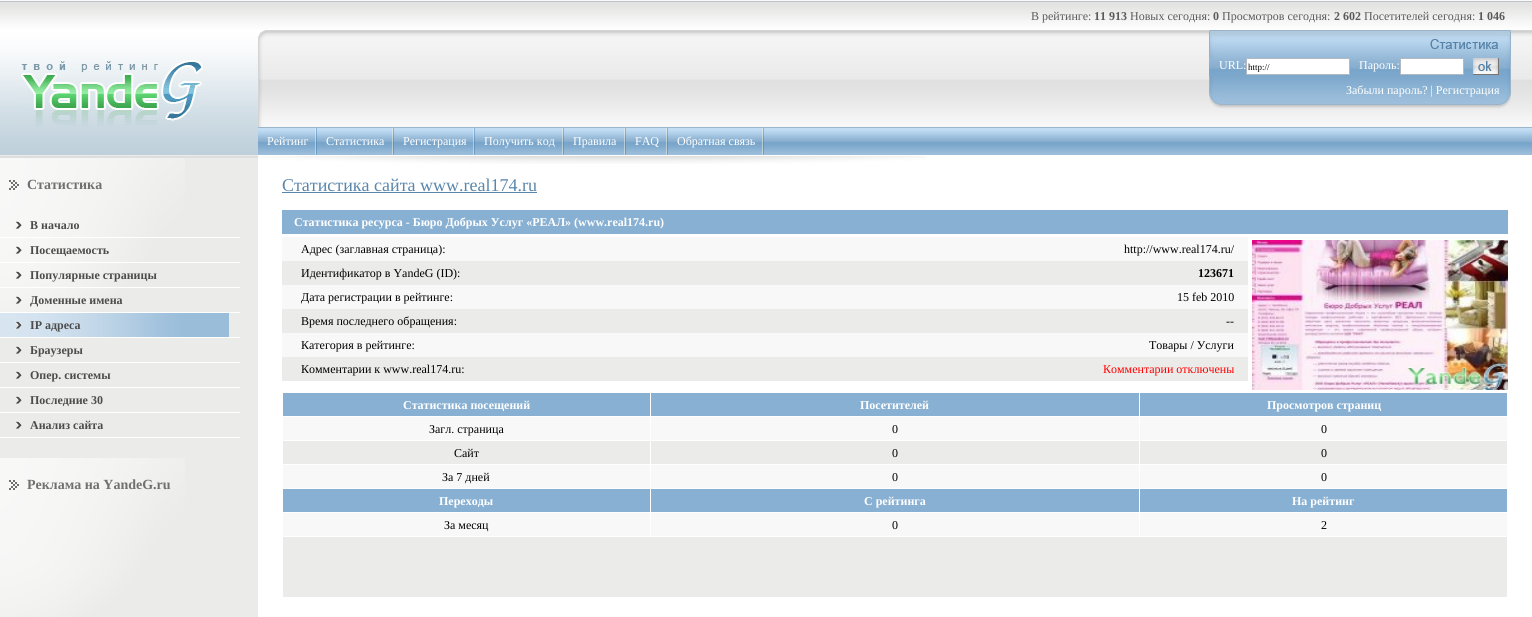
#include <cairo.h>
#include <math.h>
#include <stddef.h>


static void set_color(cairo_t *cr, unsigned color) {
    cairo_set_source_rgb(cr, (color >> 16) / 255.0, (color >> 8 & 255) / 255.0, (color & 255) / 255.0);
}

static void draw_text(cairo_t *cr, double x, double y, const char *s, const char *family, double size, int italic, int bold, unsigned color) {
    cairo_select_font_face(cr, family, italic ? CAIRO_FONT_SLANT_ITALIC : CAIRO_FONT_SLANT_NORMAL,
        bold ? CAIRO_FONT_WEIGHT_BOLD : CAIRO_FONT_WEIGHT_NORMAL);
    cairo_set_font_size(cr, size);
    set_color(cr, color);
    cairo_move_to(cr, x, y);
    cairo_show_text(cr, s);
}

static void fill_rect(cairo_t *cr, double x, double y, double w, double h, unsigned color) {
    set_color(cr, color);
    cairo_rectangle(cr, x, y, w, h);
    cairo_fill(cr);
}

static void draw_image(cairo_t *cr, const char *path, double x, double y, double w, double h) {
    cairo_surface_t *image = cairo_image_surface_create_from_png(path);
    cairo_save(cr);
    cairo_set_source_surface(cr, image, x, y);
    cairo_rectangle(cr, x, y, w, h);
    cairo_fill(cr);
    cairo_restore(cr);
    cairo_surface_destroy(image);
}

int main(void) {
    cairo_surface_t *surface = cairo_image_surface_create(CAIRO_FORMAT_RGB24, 1532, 617);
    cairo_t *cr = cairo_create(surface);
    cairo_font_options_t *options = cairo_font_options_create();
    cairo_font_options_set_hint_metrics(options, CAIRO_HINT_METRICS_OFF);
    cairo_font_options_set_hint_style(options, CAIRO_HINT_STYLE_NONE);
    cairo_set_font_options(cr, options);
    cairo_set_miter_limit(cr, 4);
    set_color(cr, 0xFFFFFF);
    cairo_paint(cr);
    fill_rect(cr, 0, 155, 258, 462, 0xEBEBE9);
    draw_image(cr, "assets/img1.png", 0, 0, 1532, 155);
    draw_image(cr, "assets/img2.png", 17, 58, 186, 68);
    draw_text(cr, 1031, 20, "В рейтинге:", "Liberation Serif", 12, 0, 0, 0x5A5A5A);
    draw_text(cr, 1094, 20, "11 913", "Liberation Serif", 12, 0, 1, 0x5A5A5A);
    draw_text(cr, 1130, 20, "Новых сегодня:", "Liberation Serif", 12, 0, 0, 0x5A5A5A);
    draw_text(cr, 1213, 20, "0", "Liberation Serif", 12, 0, 1, 0x5A5A5A);
    draw_text(cr, 1222, 20, "Просмотров сегодня:", "Liberation Serif", 12, 0, 0, 0x5A5A5A);
    draw_text(cr, 1334, 20, "2 602", "Liberation Serif", 12, 0, 1, 0x5A5A5A);
    draw_text(cr, 1364, 20, "Посетителей сегодня:", "Liberation Serif", 12, 0, 0, 0x5A5A5A);
    draw_text(cr, 1478, 20, "1 046", "Liberation Serif", 12, 0, 1, 0x5A5A5A);
    draw_image(cr, "assets/img3.png", 266, 30, 1266, 97);
    draw_image(cr, "assets/img4.png", 258, 30, 8, 97);
    draw_image(cr, "assets/img5.png", 1224, 30, 272, 79);
    draw_image(cr, "assets/img6.png", 1209, 30, 15, 79);
    draw_image(cr, "assets/img7.png", 1496, 30, 15, 79);
    draw_image(cr, "assets/img8.png", 1430, 39, 68, 10);
    draw_text(cr, 1219, 69, "URL:", "Liberation Serif", 12, 0, 0, 0xFFFFFF);
    cairo_rectangle(cr, 1246.5, 58.5, 103, 16);
    cairo_fill_preserve(cr);
    set_color(cr, 0xB3B9C3);
    cairo_set_line_width(cr, 1);
    cairo_stroke(cr);
    draw_text(cr, 1248, 70, "http://", "Liberation Serif", 9, 0, 0, 0x000000);
    draw_text(cr, 1359, 69, "Пароль:", "Liberation Serif", 12, 0, 0, 0xFFFFFF);
    cairo_rectangle(cr, 1400.5, 58.5, 63, 16);
    cairo_fill_preserve(cr);
    set_color(cr, 0xB3B9C3);
    cairo_stroke(cr);
    fill_rect(cr, 1498, 58, 1, 17, 0x797575);
    fill_rect(cr, 1473, 74, 26, 1, 0x797575);
    draw_image(cr, "assets/img9.png", 1473, 58, 25, 16);
    draw_text(cr, 1346, 94, "Забыли пароль? | Регистрация", "Liberation Serif", 12, 0, 0, 0xFFFFFF);
    draw_image(cr, "assets/img10.png", 258, 127, 1274, 28);
    draw_image(cr, "assets/img11.png", 315, 128, 2, 27);
    draw_text(cr, 267, 145, "Рейтинг", "Liberation Serif", 12, 0, 0, 0xFFFFFF);
    draw_image(cr, "assets/img11.png", 392, 128, 2, 27);
    draw_text(cr, 326, 145, "Статистика", "Liberation Serif", 12, 0, 0, 0xFFFFFF);
    draw_image(cr, "assets/img11.png", 473, 128, 2, 27);
    draw_text(cr, 403, 145, "Регистрация", "Liberation Serif", 12, 0, 0, 0xFFFFFF);
    draw_image(cr, "assets/img11.png", 562, 128, 2, 27);
    draw_text(cr, 484, 145, "Получить код", "Liberation Serif", 12, 0, 0, 0xFFFFFF);
    draw_image(cr, "assets/img11.png", 624, 128, 2, 27);
    draw_text(cr, 573, 145, "Правила", "Liberation Serif", 12, 0, 0, 0xFFFFFF);
    draw_image(cr, "assets/img11.png", 666, 128, 2, 27);
    draw_text(cr, 635, 145, "FAQ", "Liberation Serif", 12, 0, 0, 0xFFFFFF);
    draw_image(cr, "assets/img11.png", 762, 128, 2, 27);
    draw_text(cr, 677, 145, "Обратная связь", "Liberation Serif", 12, 0, 0, 0xFFFFFF);
    fill_rect(cr, 0, 156, 258, 2, 0xDEDEDE);
    draw_image(cr, "assets/img12.png", 0, 158, 185, 154);
    draw_image(cr, "assets/img13.png", 9, 180, 10, 10);
    draw_text(cr, 27, 189, "Статистика", "Liberation Serif", 14, 0, 1, 0x707070);
    fill_rect(cr, 0, 237, 240, 1, 0xFFFFFF);
    draw_image(cr, "assets/img14.png", 15, 221, 7, 8);
    draw_text(cr, 30, 229, "В начало", "Liberation Serif", 12, 0, 1, 0x4C4C4C);
    fill_rect(cr, 0, 262, 240, 1, 0xFFFFFF);
    draw_image(cr, "assets/img15.png", 15, 246, 7, 8);
    draw_text(cr, 30, 254, "Посещаемость", "Liberation Serif", 12, 0, 1, 0x4C4C4C);
    fill_rect(cr, 0, 287, 240, 1, 0xFFFFFF);
    draw_image(cr, "assets/img16.png", 15, 271, 7, 8);
    draw_text(cr, 30, 279, "Популярные страницы", "Liberation Serif", 12, 0, 1, 0x4C4C4C);
    fill_rect(cr, 0, 312, 240, 1, 0xFFFFFF);
    draw_image(cr, "assets/img17.png", 15, 296, 7, 8);
    draw_text(cr, 30, 304, "Доменные имена", "Liberation Serif", 12, 0, 1, 0x4C4C4C);
    fill_rect(cr, 0, 337, 240, 1, 0xFFFFFF);
    draw_image(cr, "assets/img18.png", 0, 313, 229, 24);
    draw_image(cr, "assets/img19.png", 15, 321, 7, 8);
    draw_text(cr, 30, 329, "IP адреса", "Liberation Serif", 12, 0, 1, 0x4C4C4C);
    fill_rect(cr, 0, 362, 240, 1, 0xFFFFFF);
    draw_image(cr, "assets/img20.png", 15, 346, 7, 8);
    draw_text(cr, 30, 354, "Браузеры", "Liberation Serif", 12, 0, 1, 0x4C4C4C);
    fill_rect(cr, 0, 387, 240, 1, 0xFFFFFF);
    draw_image(cr, "assets/img20.png", 15, 371, 7, 8);
    draw_text(cr, 30, 379, "Опер. системы", "Liberation Serif", 12, 0, 1, 0x4C4C4C);
    fill_rect(cr, 0, 412, 240, 1, 0xFFFFFF);
    draw_image(cr, "assets/img20.png", 15, 396, 7, 8);
    draw_text(cr, 30, 404, "Последние 30", "Liberation Serif", 12, 0, 1, 0x4C4C4C);
    fill_rect(cr, 0, 437, 240, 1, 0xFFFFFF);
    draw_image(cr, "assets/img20.png", 15, 421, 7, 8);
    draw_text(cr, 30, 429, "Анализ сайта", "Liberation Serif", 12, 0, 1, 0x4C4C4C);
    draw_image(cr, "assets/img21.png", 0, 458, 185, 159);
    draw_image(cr, "assets/img13.png", 9, 480, 10, 10);
    draw_text(cr, 27, 489, "Реклама на YandeG.ru", "Liberation Serif", 14, 0, 1, 0x707070);
    draw_image(cr, "assets/img22.png", 258, 156, 668, 8);
    draw_text(cr, 282, 191, "Статистика сайта www.real174.ru", "Liberation Serif", 18, 0, 0, 0x5A86AC);
    fill_rect(cr, 282, 192, 255, 1, 0x5A86AC);
    fill_rect(cr, 282, 210, 1226, 24, 0x88B0D2);
    draw_text(cr, 294, 226, "Статистика ресурса - Бюро Добрых Услуг «РЕАЛ» (www.real174.ru)", "Liberation Serif", 12, 0, 1, 0xFFFFFF);
    fill_rect(cr, 282, 237, 966, 24, 0xF8F8F8);
    draw_text(cr, 301, 253, "Адрес (заглавная страница):", "Liberation Serif", 12, 0, 0, 0x000000);
    draw_text(cr, 1124, 253, "http://www.real174.ru/", "Liberation Serif", 12, 0, 0, 0x000000);
    fill_rect(cr, 282, 261, 966, 24, 0xEBEBE9);
    draw_text(cr, 301, 277, "Идентификатор в YandeG (ID):", "Liberation Serif", 12, 0, 0, 0x000000);
    draw_text(cr, 1198, 277, "123671", "Liberation Serif", 12, 0, 1, 0x000000);
    fill_rect(cr, 282, 285, 966, 24, 0xF8F8F8);
    draw_text(cr, 301, 301, "Дата регистрации в рейтинге:", "Liberation Serif", 12, 0, 0, 0x000000);
    draw_text(cr, 1177, 301, "15 feb 2010", "Liberation Serif", 12, 0, 0, 0x000000);
    fill_rect(cr, 282, 309, 966, 24, 0xEBEBE9);
    draw_text(cr, 301, 325, "Время последнего обращения:", "Liberation Serif", 12, 0, 0, 0x000000);
    draw_text(cr, 1226, 325, "--", "Liberation Serif", 12, 0, 0, 0x000000);
    fill_rect(cr, 282, 333, 966, 24, 0xF8F8F8);
    draw_text(cr, 301, 349, "Категория в рейтинге:", "Liberation Serif", 12, 0, 0, 0x000000);
    draw_text(cr, 1149, 349, "Товары / Услуги", "Liberation Serif", 12, 0, 0, 0x000000);
    fill_rect(cr, 282, 357, 966, 24, 0xEBEBE9);
    draw_text(cr, 301, 373, "Комментарии к www.real174.ru:", "Liberation Serif", 12, 0, 0, 0x000000);
    draw_text(cr, 1103, 373, "Комментарии отключены", "Liberation Serif", 12, 0, 0, 0xFF0000);
    draw_image(cr, "assets/img23.png", 1252, 240, 256, 150);
    fill_rect(cr, 283, 393, 367, 23, 0x88B0D2);
    draw_text(cr, 403, 409, "Статистика посещений", "Liberation Serif", 12, 0, 1, 0xFFFFFF);
    fill_rect(cr, 651, 393, 488, 23, 0x88B0D2);
    draw_text(cr, 860, 409, "Посетителей", "Liberation Serif", 12, 0, 1, 0xFFFFFF);
    fill_rect(cr, 1140, 393, 367, 23, 0x88B0D2);
    draw_text(cr, 1267, 409, "Просмотров страниц", "Liberation Serif", 12, 0, 1, 0xFFFFFF);
    fill_rect(cr, 283, 417, 367, 23, 0xF8F8F8);
    draw_text(cr, 429, 433, "Загл. страница", "Liberation Serif", 12, 0, 0, 0x000000);
    fill_rect(cr, 651, 417, 488, 23, 0xF8F8F8);
    draw_text(cr, 892, 433, "0", "Liberation Serif", 12, 0, 0, 0x000000);
    fill_rect(cr, 1140, 417, 367, 23, 0xF8F8F8);
    draw_text(cr, 1321, 433, "0", "Liberation Serif", 12, 0, 0, 0x000000);
    fill_rect(cr, 283, 441, 367, 23, 0xEBEBE9);
    draw_text(cr, 454, 457, "Сайт", "Liberation Serif", 12, 0, 0, 0x000000);
    fill_rect(cr, 651, 441, 488, 23, 0xEBEBE9);
    draw_text(cr, 892, 457, "0", "Liberation Serif", 12, 0, 0, 0x000000);
    fill_rect(cr, 1140, 441, 367, 23, 0xEBEBE9);
    draw_text(cr, 1321, 457, "0", "Liberation Serif", 12, 0, 0, 0x000000);
    fill_rect(cr, 283, 465, 367, 23, 0xF8F8F8);
    draw_text(cr, 442, 481, "За 7 дней", "Liberation Serif", 12, 0, 0, 0x000000);
    fill_rect(cr, 651, 465, 488, 23, 0xF8F8F8);
    draw_text(cr, 892, 481, "0", "Liberation Serif", 12, 0, 0, 0x000000);
    fill_rect(cr, 1140, 465, 367, 23, 0xF8F8F8);
    draw_text(cr, 1321, 481, "0", "Liberation Serif", 12, 0, 0, 0x000000);
    fill_rect(cr, 283, 489, 367, 23, 0x88B0D2);
    draw_text(cr, 439, 505, "Переходы", "Liberation Serif", 12, 0, 1, 0xFFFFFF);
    fill_rect(cr, 651, 489, 488, 23, 0x88B0D2);
    draw_text(cr, 864, 505, "С рейтинга", "Liberation Serif", 12, 0, 1, 0xFFFFFF);
    fill_rect(cr, 1140, 489, 367, 23, 0x88B0D2);
    draw_text(cr, 1292, 505, "На рейтинг", "Liberation Serif", 12, 0, 1, 0xFFFFFF);
    fill_rect(cr, 283, 513, 367, 23, 0xF8F8F8);
    draw_text(cr, 444, 529, "За месяц", "Liberation Serif", 12, 0, 0, 0x000000);
    fill_rect(cr, 651, 513, 488, 23, 0xF8F8F8);
    draw_text(cr, 892, 529, "0", "Liberation Serif", 12, 0, 0, 0x000000);
    fill_rect(cr, 1140, 513, 367, 23, 0xF8F8F8);
    draw_text(cr, 1321, 529, "2", "Liberation Serif", 12, 0, 0, 0x000000);
    fill_rect(cr, 283, 537, 1224, 60, 0xEBEBE9);
    cairo_surface_write_to_png(surface, "output.png");
    cairo_font_options_destroy(options);
    cairo_destroy(cr);
    cairo_surface_destroy(surface);
    return 0;
}
